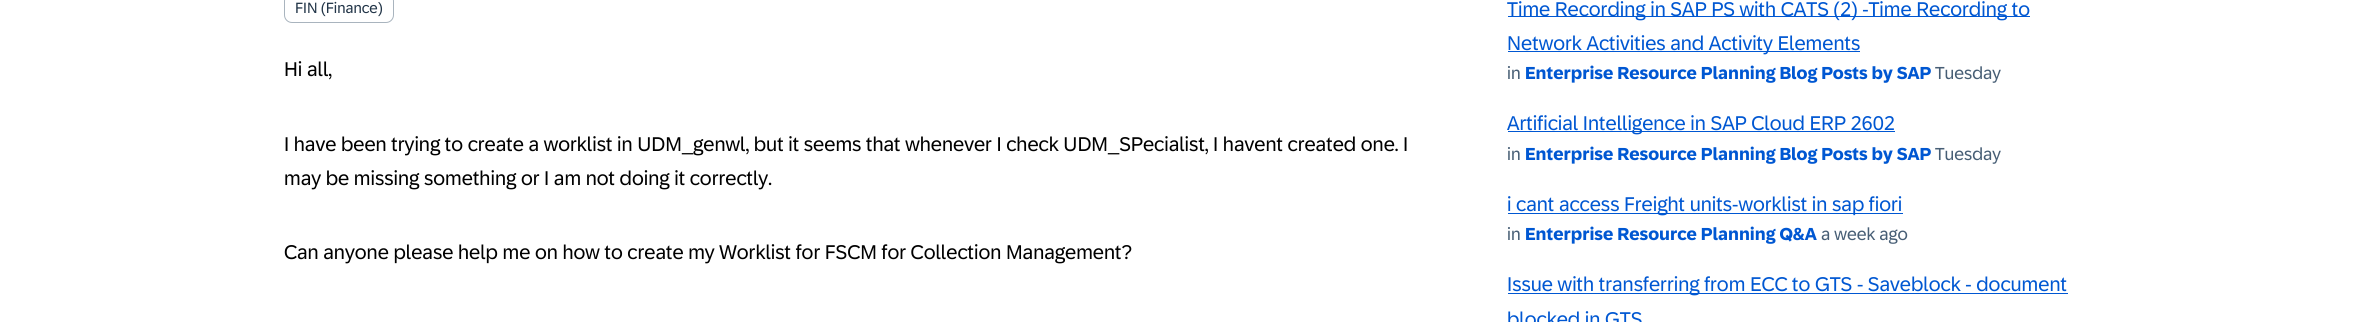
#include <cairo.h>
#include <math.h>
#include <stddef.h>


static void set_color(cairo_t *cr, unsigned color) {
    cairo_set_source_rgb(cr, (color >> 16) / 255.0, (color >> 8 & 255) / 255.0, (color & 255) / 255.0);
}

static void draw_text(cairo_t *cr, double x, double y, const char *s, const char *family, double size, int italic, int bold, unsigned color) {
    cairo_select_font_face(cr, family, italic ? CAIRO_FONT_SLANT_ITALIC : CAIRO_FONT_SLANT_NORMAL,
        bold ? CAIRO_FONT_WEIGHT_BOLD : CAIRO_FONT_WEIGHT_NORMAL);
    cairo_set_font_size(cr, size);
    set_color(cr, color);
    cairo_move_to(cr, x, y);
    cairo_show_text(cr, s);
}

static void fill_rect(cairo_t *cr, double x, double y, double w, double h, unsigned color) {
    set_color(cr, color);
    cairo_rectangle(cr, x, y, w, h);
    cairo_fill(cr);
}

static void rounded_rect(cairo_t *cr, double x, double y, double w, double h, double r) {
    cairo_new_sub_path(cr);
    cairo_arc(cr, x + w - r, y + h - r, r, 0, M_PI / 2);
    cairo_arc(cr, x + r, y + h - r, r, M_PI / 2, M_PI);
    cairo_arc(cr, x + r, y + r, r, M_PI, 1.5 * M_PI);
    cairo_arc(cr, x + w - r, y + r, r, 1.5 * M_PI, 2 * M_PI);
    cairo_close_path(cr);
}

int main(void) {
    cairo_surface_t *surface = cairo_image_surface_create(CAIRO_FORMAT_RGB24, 2357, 322);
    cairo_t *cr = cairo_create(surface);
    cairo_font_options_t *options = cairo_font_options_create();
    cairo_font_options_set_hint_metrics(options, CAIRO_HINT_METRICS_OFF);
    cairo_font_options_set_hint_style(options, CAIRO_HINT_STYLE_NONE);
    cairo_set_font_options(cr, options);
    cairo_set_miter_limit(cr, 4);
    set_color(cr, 0xFFFFFF);
    cairo_paint(cr);
    rounded_rect(cr, 284.5, -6.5, 109, 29, 7.5);
    set_color(cr, 0xA9B4BE);
    cairo_set_line_width(cr, 1);
    cairo_stroke(cr);
    draw_text(cr, 295, 13, "FIN (Finance)", "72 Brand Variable", 15, 0, 0, 0x223548);
    draw_text(cr, 284, 76, "Hi all,", "72 Brand Variable", 20, 0, 0, 0x000000);
    draw_text(cr, 284, 151, "I have been trying to create a worklist in UDM_genwl, but it seems that whenever I check UDM_SPecialist, I havent created one. I", "72 Brand Variable", 20, 0, 0, 0x000000);
    draw_text(cr, 284, 185, "may be missing something or I am not doing it correctly.", "72 Brand Variable", 20, 0, 0, 0x000000);
    draw_text(cr, 284, 259, "Can anyone please help me on how to create my Worklist for FSCM for Collection Management?", "72 Brand Variable", 20, 0, 0, 0x000000);
    fill_rect(cr, 1508, 16, 522, 1, 0x0057D2);
    draw_text(cr, 1507, 16, "Time Recording in SAP PS with CATS (2) -Time Recording to", "72 Brand Variable", 20, 0, 0, 0x0057D2);
    fill_rect(cr, 1508, 51, 352, 1, 0x0057D2);
    draw_text(cr, 1507, 50, "Network Activities and Activity Elements", "72 Brand Variable", 20, 0, 0, 0x0057D2);
    draw_text(cr, 1507, 79, "in", "72 Brand Variable", 17.5, 0, 0, 0x475E75);
    draw_text(cr, 1525, 79, "Enterprise Resource Planning Blog Posts by SAP", "72 Brand Variable", 17.5, 0, 1, 0x0057D2);
    draw_text(cr, 1935, 79, "Tuesday", "72 Brand Variable", 17.5, 0, 0, 0x475E75);
    fill_rect(cr, 1508, 131, 387, 1, 0x0057D2);
    draw_text(cr, 1507, 130, "Artificial Intelligence in SAP Cloud ERP 2602", "72 Brand Variable", 20, 0, 0, 0x0057D2);
    draw_text(cr, 1507, 160, "in", "72 Brand Variable", 17.5, 0, 0, 0x475E75);
    draw_text(cr, 1525, 160, "Enterprise Resource Planning Blog Posts by SAP", "72 Brand Variable", 17.5, 0, 1, 0x0057D2);
    draw_text(cr, 1935, 160, "Tuesday", "72 Brand Variable", 17.5, 0, 0, 0x475E75);
    fill_rect(cr, 1508, 213, 395, 1, 0x0057D2);
    draw_text(cr, 1507, 211, "i cant access Freight units-worklist in sap fiori", "72 Brand Variable", 20, 0, 0, 0x0057D2);
    draw_text(cr, 1507, 240, "in", "72 Brand Variable", 17.5, 0, 0, 0x475E75);
    draw_text(cr, 1525, 240, "Enterprise Resource Planning Q&A", "72 Brand Variable", 17.5, 0, 1, 0x0057D2);
    draw_text(cr, 1821, 240, "a week ago", "72 Brand Variable", 17.5, 0, 0, 0x475E75);
    fill_rect(cr, 1508, 293, 560, 1, 0x0057D2);
    draw_text(cr, 1507, 291, "Issue with transferring from ECC to GTS - Saveblock - document", "72 Brand Variable", 20, 0, 0, 0x0057D2);
    draw_text(cr, 1507, 326, "blocked in GTS", "72 Brand Variable", 20, 0, 0, 0x0057D2);
    cairo_surface_write_to_png(surface, "output.png");
    cairo_font_options_destroy(options);
    cairo_destroy(cr);
    cairo_surface_destroy(surface);
    return 0;
}
